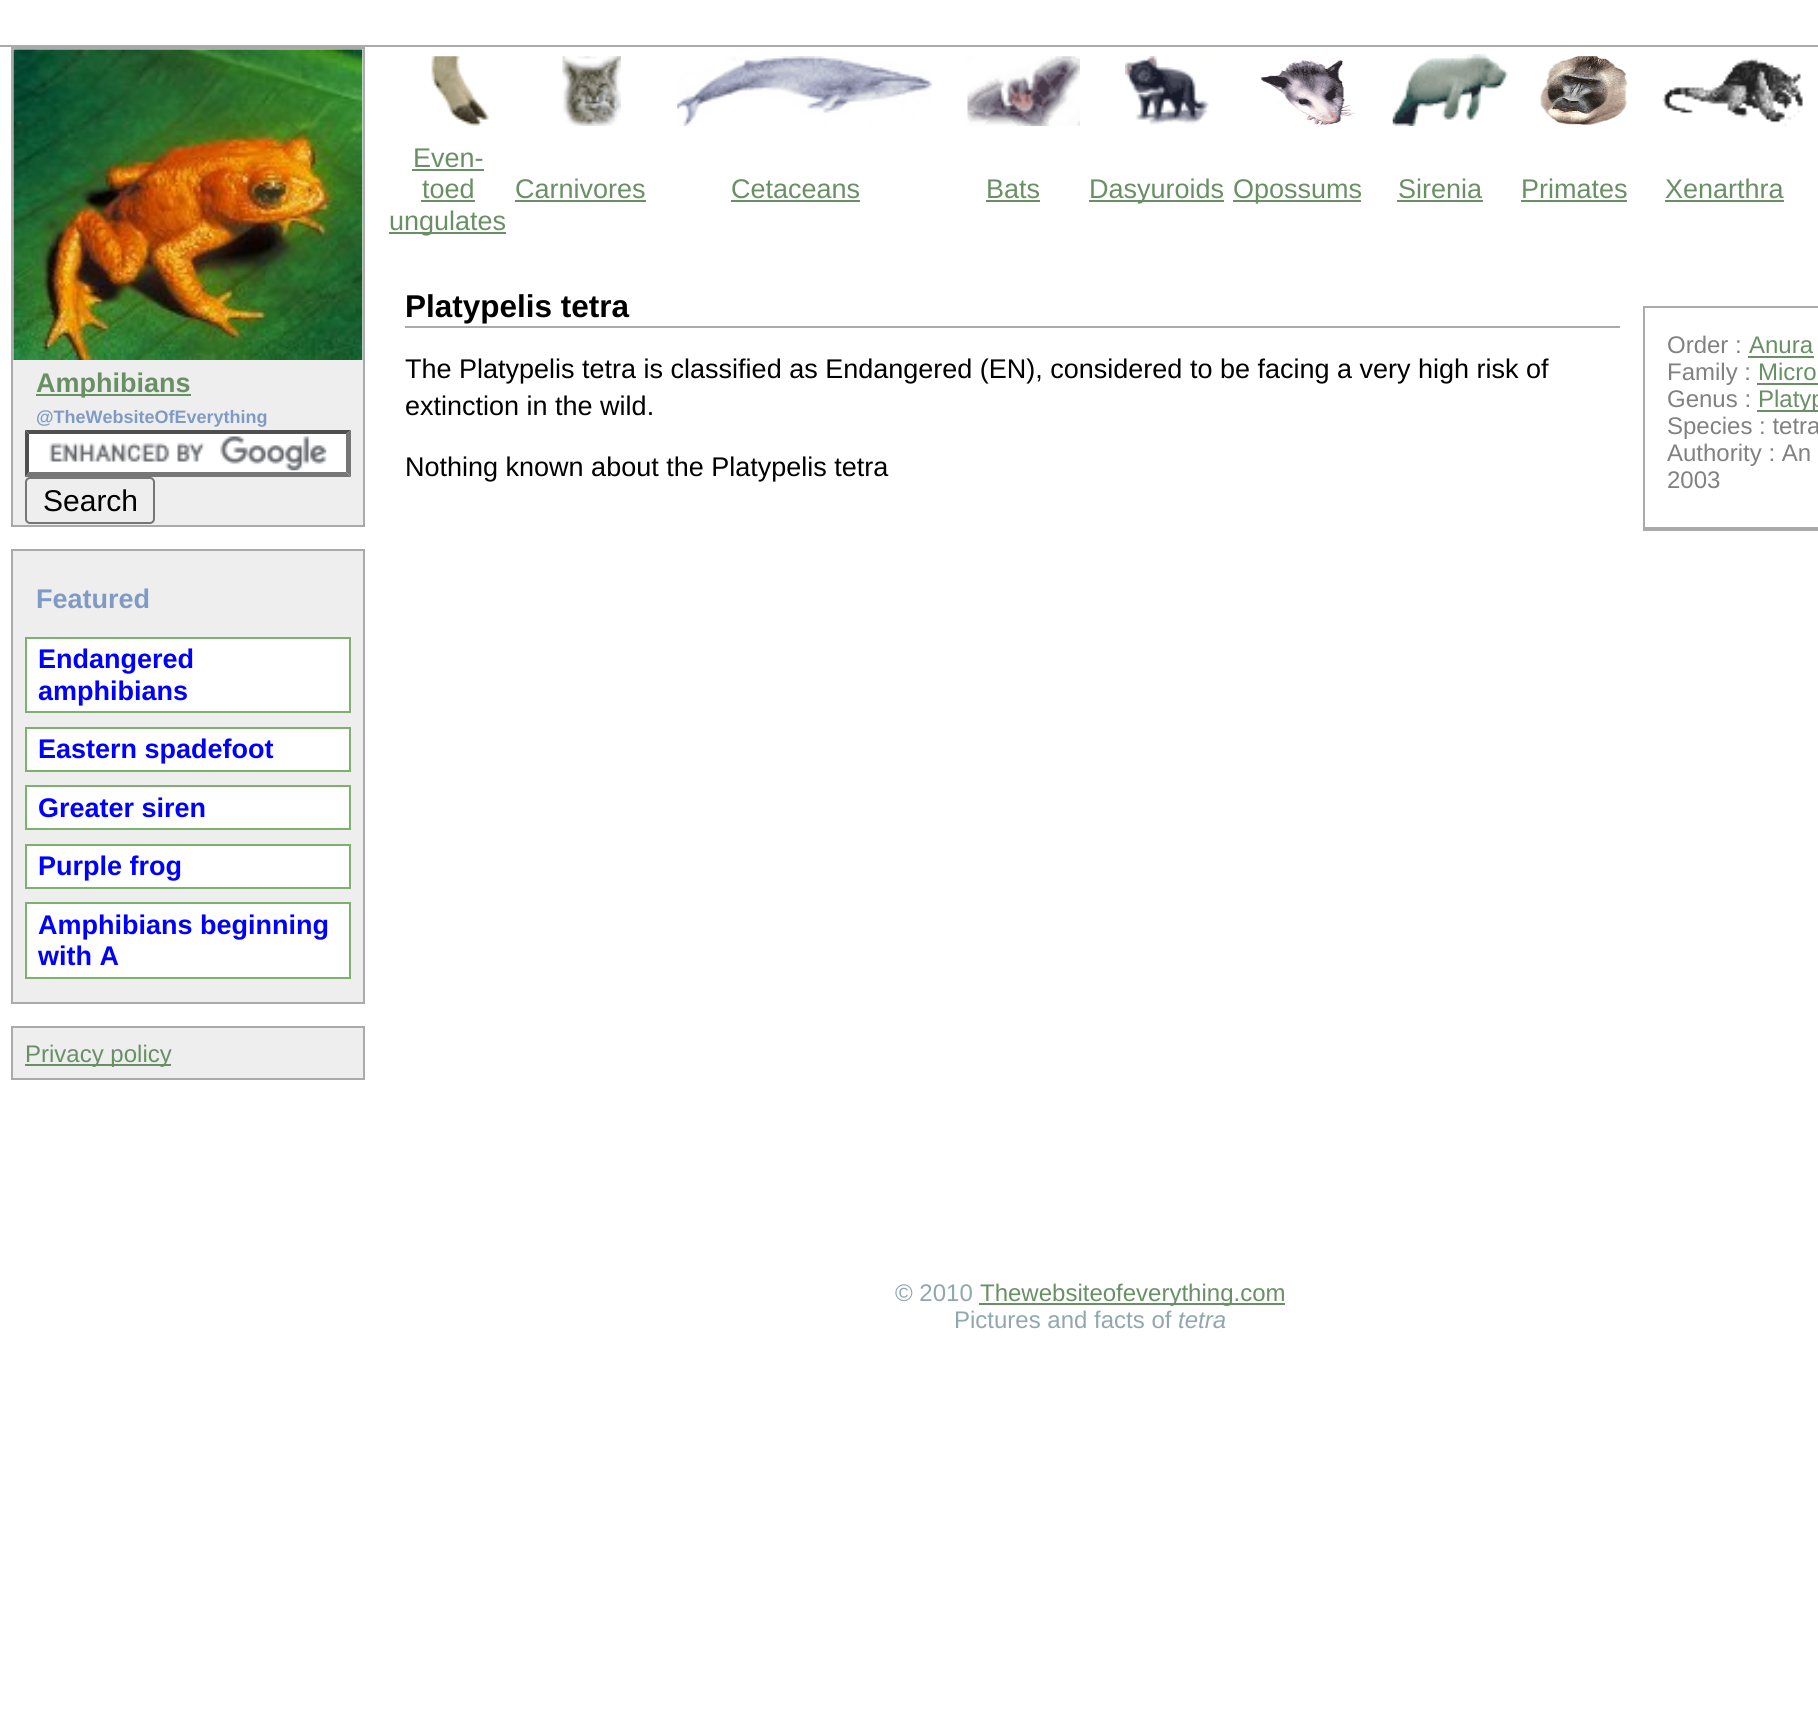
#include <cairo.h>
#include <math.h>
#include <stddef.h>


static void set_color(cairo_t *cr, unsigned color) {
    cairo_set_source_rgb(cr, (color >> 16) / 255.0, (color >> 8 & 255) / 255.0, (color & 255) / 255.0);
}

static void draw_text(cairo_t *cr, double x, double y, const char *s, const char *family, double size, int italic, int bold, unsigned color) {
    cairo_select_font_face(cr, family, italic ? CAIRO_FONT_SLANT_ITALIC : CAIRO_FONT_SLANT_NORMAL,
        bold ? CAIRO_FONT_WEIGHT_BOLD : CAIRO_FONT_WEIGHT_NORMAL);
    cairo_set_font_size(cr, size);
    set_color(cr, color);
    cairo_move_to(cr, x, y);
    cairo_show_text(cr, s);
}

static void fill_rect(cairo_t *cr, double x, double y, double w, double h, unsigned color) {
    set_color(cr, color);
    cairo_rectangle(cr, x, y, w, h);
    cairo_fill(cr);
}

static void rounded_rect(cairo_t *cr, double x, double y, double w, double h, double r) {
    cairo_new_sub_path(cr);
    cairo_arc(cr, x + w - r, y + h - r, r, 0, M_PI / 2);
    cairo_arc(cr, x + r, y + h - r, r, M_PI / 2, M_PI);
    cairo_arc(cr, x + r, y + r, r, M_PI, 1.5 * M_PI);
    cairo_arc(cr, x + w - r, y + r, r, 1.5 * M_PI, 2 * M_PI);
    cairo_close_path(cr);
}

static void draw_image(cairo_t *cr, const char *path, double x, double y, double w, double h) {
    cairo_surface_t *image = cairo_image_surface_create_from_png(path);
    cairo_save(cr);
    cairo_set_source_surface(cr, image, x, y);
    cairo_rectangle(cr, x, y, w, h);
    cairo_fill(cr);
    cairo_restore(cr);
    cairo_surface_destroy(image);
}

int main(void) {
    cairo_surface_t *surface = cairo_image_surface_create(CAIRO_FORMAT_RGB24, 1818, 1732);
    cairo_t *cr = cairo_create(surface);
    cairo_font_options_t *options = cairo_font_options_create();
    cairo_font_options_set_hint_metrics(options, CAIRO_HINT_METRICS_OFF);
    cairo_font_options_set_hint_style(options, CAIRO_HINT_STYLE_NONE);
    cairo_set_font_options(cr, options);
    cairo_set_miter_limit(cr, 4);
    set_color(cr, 0xFFFFFF);
    cairo_paint(cr);
    fill_rect(cr, 0, 45, 1818, 2, 0xAAAAAA);
    draw_image(cr, "assets/img1.png", 431, 56, 58, 70);
    draw_image(cr, "assets/img2.png", 562, 56, 59, 70);
    draw_image(cr, "assets/img3.png", 677, 56, 256, 70);
    draw_image(cr, "assets/img4.png", 967, 56, 113, 70);
    draw_image(cr, "assets/img5.png", 1125, 56, 84, 69);
    draw_image(cr, "assets/img6.png", 1260, 56, 95, 70);
    draw_image(cr, "assets/img7.png", 1392, 54, 116, 72);
    draw_image(cr, "assets/img8.png", 1539, 56, 89, 69);
    draw_image(cr, "assets/img9.png", 1662, 58, 141, 68);
    draw_text(cr, 413, 167, "Even-", "Liberation Sans", 27, 0, 0, 0x699065);
    fill_rect(cr, 412, 169, 72, 2, 0x699065);
    draw_text(cr, 422, 198, "toed", "Liberation Sans", 27, 0, 0, 0x699065);
    fill_rect(cr, 421, 200, 54, 2, 0x699065);
    fill_rect(cr, 389, 232, 117, 2, 0x699065);
    draw_text(cr, 389, 230, "ungulates", "Liberation Sans", 27, 0, 0, 0x699065);
    draw_text(cr, 515, 198, "Carnivores", "Liberation Sans", 27, 0, 0, 0x699065);
    fill_rect(cr, 515, 200, 131, 2, 0x699065);
    draw_text(cr, 731, 198, "Cetaceans", "Liberation Sans", 27, 0, 0, 0x699065);
    fill_rect(cr, 731, 200, 129, 2, 0x699065);
    draw_text(cr, 986, 198, "Bats", "Liberation Sans", 27, 0, 0, 0x699065);
    fill_rect(cr, 986, 200, 54, 2, 0x699065);
    fill_rect(cr, 1089, 200, 135, 2, 0x699065);
    draw_text(cr, 1089, 198, "Dasyuroids", "Liberation Sans", 27, 0, 0, 0x699065);
    fill_rect(cr, 1233, 200, 128, 2, 0x699065);
    draw_text(cr, 1233, 198, "Opossums", "Liberation Sans", 27, 0, 0, 0x699065);
    draw_text(cr, 1398, 198, "Sirenia", "Liberation Sans", 27, 0, 0, 0x699065);
    fill_rect(cr, 1397, 200, 86, 2, 0x699065);
    draw_text(cr, 1521, 198, "Primates", "Liberation Sans", 27, 0, 0, 0x699065);
    fill_rect(cr, 1521, 200, 106, 2, 0x699065);
    draw_text(cr, 1665, 198, "Xenarthra", "Liberation Sans", 27, 0, 0, 0x699065);
    fill_rect(cr, 1665, 200, 119, 2, 0x699065);
    fill_rect(cr, 405, 326, 1215, 2, 0xAAAAAA);
    draw_text(cr, 405, 317, "Platypelis tetra", "Liberation Sans", 31.5, 0, 1, 0x000000);
    draw_text(cr, 405, 378, "The Platypelis tetra is classified as Endangered (EN), considered to be facing a very high risk of", "Liberation Sans", 27, 0, 0, 0x000000);
    draw_text(cr, 405, 415, "extinction in the wild.", "Liberation Sans", 27, 0, 0, 0x000000);
    draw_text(cr, 405, 476, "Nothing known about the Platypelis tetra", "Liberation Sans", 27, 0, 0, 0x000000);
    set_color(cr, 0xEEEEEE);
    cairo_rectangle(cr, 12, 48, 352, 478);
    cairo_fill_preserve(cr);
    set_color(cr, 0xAAAAAA);
    cairo_stroke(cr);
    draw_image(cr, "assets/img10.png", 13, 49, 350, 311);
    fill_rect(cr, 36, 394, 155, 2, 0x699065);
    draw_text(cr, 36, 392, "Amphibians", "Liberation Sans", 27, 0, 1, 0x699065);
    draw_text(cr, 36, 423, "@TheWebsiteOfEverything", "Liberation Sans", 18, 0, 1, 0x7F9BC5);
    fill_rect(cr, 25, 430, 326, 47, 0xFFFFFF);
    draw_image(cr, "assets/img11.png", 49, 436, 278, 35);
    set_color(cr, 0x4F4F4F);
    cairo_new_path(cr);
    cairo_move_to(cr, 25, 430);
    cairo_line_to(cr, 351, 430);
    cairo_line_to(cr, 346, 434);
    cairo_line_to(cr, 29, 434);
    cairo_close_path(cr);
    cairo_fill(cr);
    set_color(cr, 0x767676);
    cairo_new_path(cr);
    cairo_move_to(cr, 351, 430);
    cairo_line_to(cr, 351, 477);
    cairo_line_to(cr, 346, 472);
    cairo_line_to(cr, 346, 434);
    cairo_close_path(cr);
    cairo_fill(cr);
    cairo_new_path(cr);
    cairo_move_to(cr, 351, 477);
    cairo_line_to(cr, 25, 477);
    cairo_line_to(cr, 29, 472);
    cairo_line_to(cr, 346, 472);
    cairo_close_path(cr);
    cairo_fill(cr);
    set_color(cr, 0x4F4F4F);
    cairo_new_path(cr);
    cairo_move_to(cr, 25, 477);
    cairo_line_to(cr, 25, 430);
    cairo_line_to(cr, 29, 434);
    cairo_line_to(cr, 29, 472);
    cairo_close_path(cr);
    cairo_fill(cr);
    rounded_rect(cr, 26, 478, 128, 45, 4);
    set_color(cr, 0x767676);
    cairo_stroke(cr);
    draw_text(cr, 43, 511, "Search", "Liberation Sans", 30, 0, 0, 0x000000);
    set_color(cr, 0xEEEEEE);
    cairo_rectangle(cr, 12, 550, 352, 453);
    cairo_fill_preserve(cr);
    set_color(cr, 0xAAAAAA);
    cairo_stroke(cr);
    draw_text(cr, 36, 608, "Featured", "Liberation Sans", 27, 0, 1, 0x7F9BC5);
    set_color(cr, 0xFFFFFF);
    cairo_rectangle(cr, 26, 638, 324, 74);
    cairo_fill_preserve(cr);
    set_color(cr, 0x7DB26E);
    cairo_stroke(cr);
    draw_text(cr, 38, 668, "Endangered", "Liberation Sans", 27, 0, 1, 0x0000FF);
    draw_text(cr, 38, 700, "amphibians", "Liberation Sans", 27, 0, 1, 0x0000FF);
    set_color(cr, 0xFFFFFF);
    cairo_rectangle(cr, 26, 728, 324, 43);
    cairo_fill_preserve(cr);
    set_color(cr, 0x7DB26E);
    cairo_stroke(cr);
    draw_text(cr, 38, 758, "Eastern spadefoot", "Liberation Sans", 27, 0, 1, 0x0000FF);
    set_color(cr, 0xFFFFFF);
    cairo_rectangle(cr, 26, 786, 324, 43);
    cairo_fill_preserve(cr);
    set_color(cr, 0x7DB26E);
    cairo_stroke(cr);
    draw_text(cr, 38, 817, "Greater siren", "Liberation Sans", 27, 0, 1, 0x0000FF);
    set_color(cr, 0xFFFFFF);
    cairo_rectangle(cr, 26, 845, 324, 43);
    cairo_fill_preserve(cr);
    set_color(cr, 0x7DB26E);
    cairo_stroke(cr);
    draw_text(cr, 38, 875, "Purple frog", "Liberation Sans", 27, 0, 1, 0x0000FF);
    set_color(cr, 0xFFFFFF);
    cairo_rectangle(cr, 26, 903, 324, 75);
    cairo_fill_preserve(cr);
    set_color(cr, 0x7DB26E);
    cairo_stroke(cr);
    draw_text(cr, 38, 934, "Amphibians beginning", "Liberation Sans", 27, 0, 1, 0x0000FF);
    draw_text(cr, 38, 965, "with A", "Liberation Sans", 27, 0, 1, 0x0000FF);
    set_color(cr, 0xEEEEEE);
    cairo_rectangle(cr, 12, 1027, 352, 52);
    cairo_fill_preserve(cr);
    set_color(cr, 0xAAAAAA);
    cairo_stroke(cr);
    fill_rect(cr, 25, 1064, 146, 2, 0x699065);
    draw_text(cr, 25, 1062, "Privacy policy", "Liberation Sans", 24, 0, 0, 0x699065);
    fill_rect(cr, 1643, 529, 175, 2, 0xAAAAAA);
    cairo_rectangle(cr, 1644, 307, 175, 221);
    cairo_stroke(cr);
    draw_text(cr, 1667, 353, "Order :", "Liberation Sans", 24, 0, 0, 0x818181);
    draw_text(cr, 1749, 353, "Anura", "Liberation Sans", 24, 0, 0, 0x699065);
    fill_rect(cr, 1748, 356, 66, 2, 0x699065);
    draw_text(cr, 1667, 380, "Family :", "Liberation Sans", 24, 0, 0, 0x818181);
    draw_text(cr, 1758, 380, "Micro", "Liberation Sans", 24, 0, 0, 0x699065);
    fill_rect(cr, 1757, 383, 61, 2, 0x699065);
    draw_text(cr, 1667, 407, "Genus :", "Liberation Sans", 24, 0, 0, 0x818181);
    fill_rect(cr, 1757, 410, 61, 2, 0x699065);
    draw_text(cr, 1758, 407, "Platyp", "Liberation Sans", 24, 0, 0, 0x699065);
    draw_text(cr, 1667, 434, "Species : tetra", "Liberation Sans", 24, 0, 0, 0x818181);
    draw_text(cr, 1667, 461, "Authority : An", "Liberation Sans", 24, 0, 0, 0x818181);
    draw_text(cr, 1667, 488, "2003", "Liberation Sans", 24, 0, 0, 0x818181);
    draw_text(cr, 895, 1301, "© 2010", "Liberation Sans", 24, 0, 0, 0x90A7AF);
    fill_rect(cr, 979, 1303, 306, 2, 0x699065);
    draw_text(cr, 980, 1301, "Thewebsiteofeverything.com", "Liberation Sans", 24, 0, 0, 0x699065);
    draw_text(cr, 954, 1328, "Pictures and facts of", "Liberation Sans", 24, 0, 0, 0x90A7AF);
    draw_text(cr, 1178, 1328, "tetra", "Liberation Sans", 24, 1, 0, 0x90A7AF);
    cairo_surface_write_to_png(surface, "output.png");
    cairo_font_options_destroy(options);
    cairo_destroy(cr);
    cairo_surface_destroy(surface);
    return 0;
}
